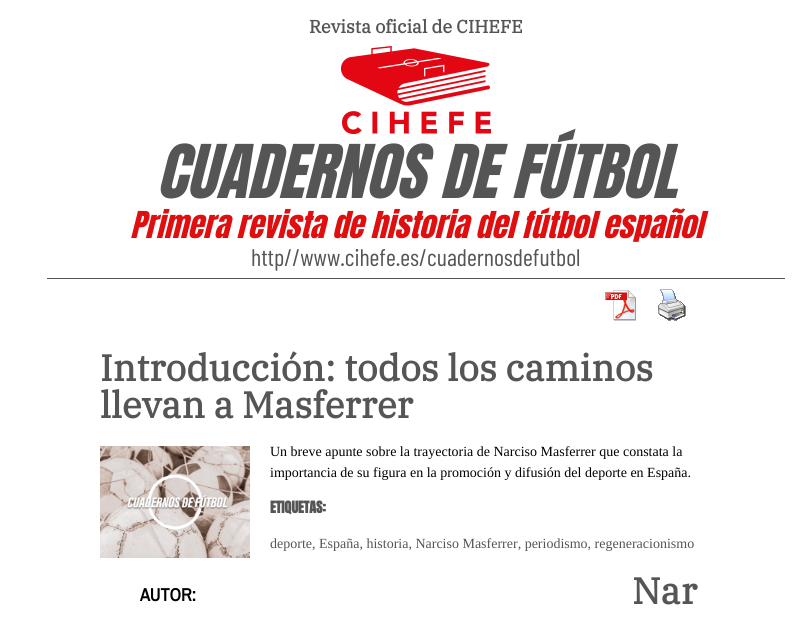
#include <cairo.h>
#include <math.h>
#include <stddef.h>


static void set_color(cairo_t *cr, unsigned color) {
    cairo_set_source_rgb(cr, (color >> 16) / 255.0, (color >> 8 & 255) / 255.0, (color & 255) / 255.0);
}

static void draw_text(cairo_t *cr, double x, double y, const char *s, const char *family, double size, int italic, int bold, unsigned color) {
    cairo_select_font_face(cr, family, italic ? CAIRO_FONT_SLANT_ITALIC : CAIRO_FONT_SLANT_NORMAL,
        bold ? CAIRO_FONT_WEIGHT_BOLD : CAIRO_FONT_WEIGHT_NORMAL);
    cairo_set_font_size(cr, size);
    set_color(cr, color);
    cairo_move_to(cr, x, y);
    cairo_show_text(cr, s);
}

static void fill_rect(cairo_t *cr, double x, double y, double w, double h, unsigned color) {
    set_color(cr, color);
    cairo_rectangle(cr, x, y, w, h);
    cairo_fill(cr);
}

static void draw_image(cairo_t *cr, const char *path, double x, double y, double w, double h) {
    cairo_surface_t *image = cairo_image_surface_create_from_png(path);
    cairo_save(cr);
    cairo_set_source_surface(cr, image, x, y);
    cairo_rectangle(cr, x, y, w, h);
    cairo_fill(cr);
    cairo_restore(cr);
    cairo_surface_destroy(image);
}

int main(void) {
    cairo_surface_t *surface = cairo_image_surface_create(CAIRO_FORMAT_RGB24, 803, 619);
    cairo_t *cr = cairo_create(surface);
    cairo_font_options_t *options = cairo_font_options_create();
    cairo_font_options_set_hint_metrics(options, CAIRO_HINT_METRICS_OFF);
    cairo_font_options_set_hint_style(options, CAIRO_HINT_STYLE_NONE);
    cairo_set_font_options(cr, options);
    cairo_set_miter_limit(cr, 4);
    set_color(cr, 0xFFFFFF);
    cairo_paint(cr);
    fill_rect(cr, 47, 278, 738, 1, 0x555555);
    draw_text(cr, 309, 33, "Revista oficial de CIHEFE", "IBM Plex Serif", 18, 0, 1, 0x555555);
    draw_text(cr, 156, 198, "CUADERNOS DE FÚTBOL", "Anton", 63, 1, 0, 0x555555);
    draw_image(cr, "assets/img1.png", 341, 46, 150, 88);
    draw_text(cr, 130, 238, "Primera revista de historia del fútbol español", "Anton", 31.5, 1, 0, 0xE00E0E);
    draw_text(cr, 251, 266, "http//www.cihefe.es/cuadernosdefutbol", "Barlow Condensed", 24, 0, 0, 0x555555);
    draw_image(cr, "assets/img2.png", 605, 290, 31, 31);
    draw_image(cr, "assets/img3.png", 658, 289, 28, 32);
    draw_text(cr, 100, 381, "Introducción: todos los caminos", "IBM Plex Serif", 36.75, 0, 1, 0x555555);
    draw_text(cr, 100, 418, "llevan a Masferrer", "IBM Plex Serif", 36.75, 0, 1, 0x555555);
    draw_image(cr, "assets/img4.png", 100, 446, 150, 112);
    draw_text(cr, 270, 456, "Un breve apunte sobre la trayectoria de Narciso Masferrer que constata la", "Liberation Serif", 14, 0, 0, 0x000000);
    draw_text(cr, 270, 477, "importancia de su figura en la promoción y difusión del deporte en España.", "Liberation Serif", 14, 0, 0, 0x000000);
    draw_text(cr, 270, 513, "ETIQUETAS:", "Anton", 14, 0, 1, 0x555555);
    draw_text(cr, 270, 548, "deporte, España, historia, Narciso Masferrer, periodismo, regeneracionismo", "Liberation Serif", 14, 0, 0, 0x555555);
    draw_text(cr, 140, 601, "AUTOR:", "Archivo Narrow", 18, 0, 1, 0x000000);
    draw_text(cr, 632, 604, "Nar", "IBM Plex Serif", 36.75, 0, 1, 0x555555);
    cairo_surface_write_to_png(surface, "output.png");
    cairo_font_options_destroy(options);
    cairo_destroy(cr);
    cairo_surface_destroy(surface);
    return 0;
}
